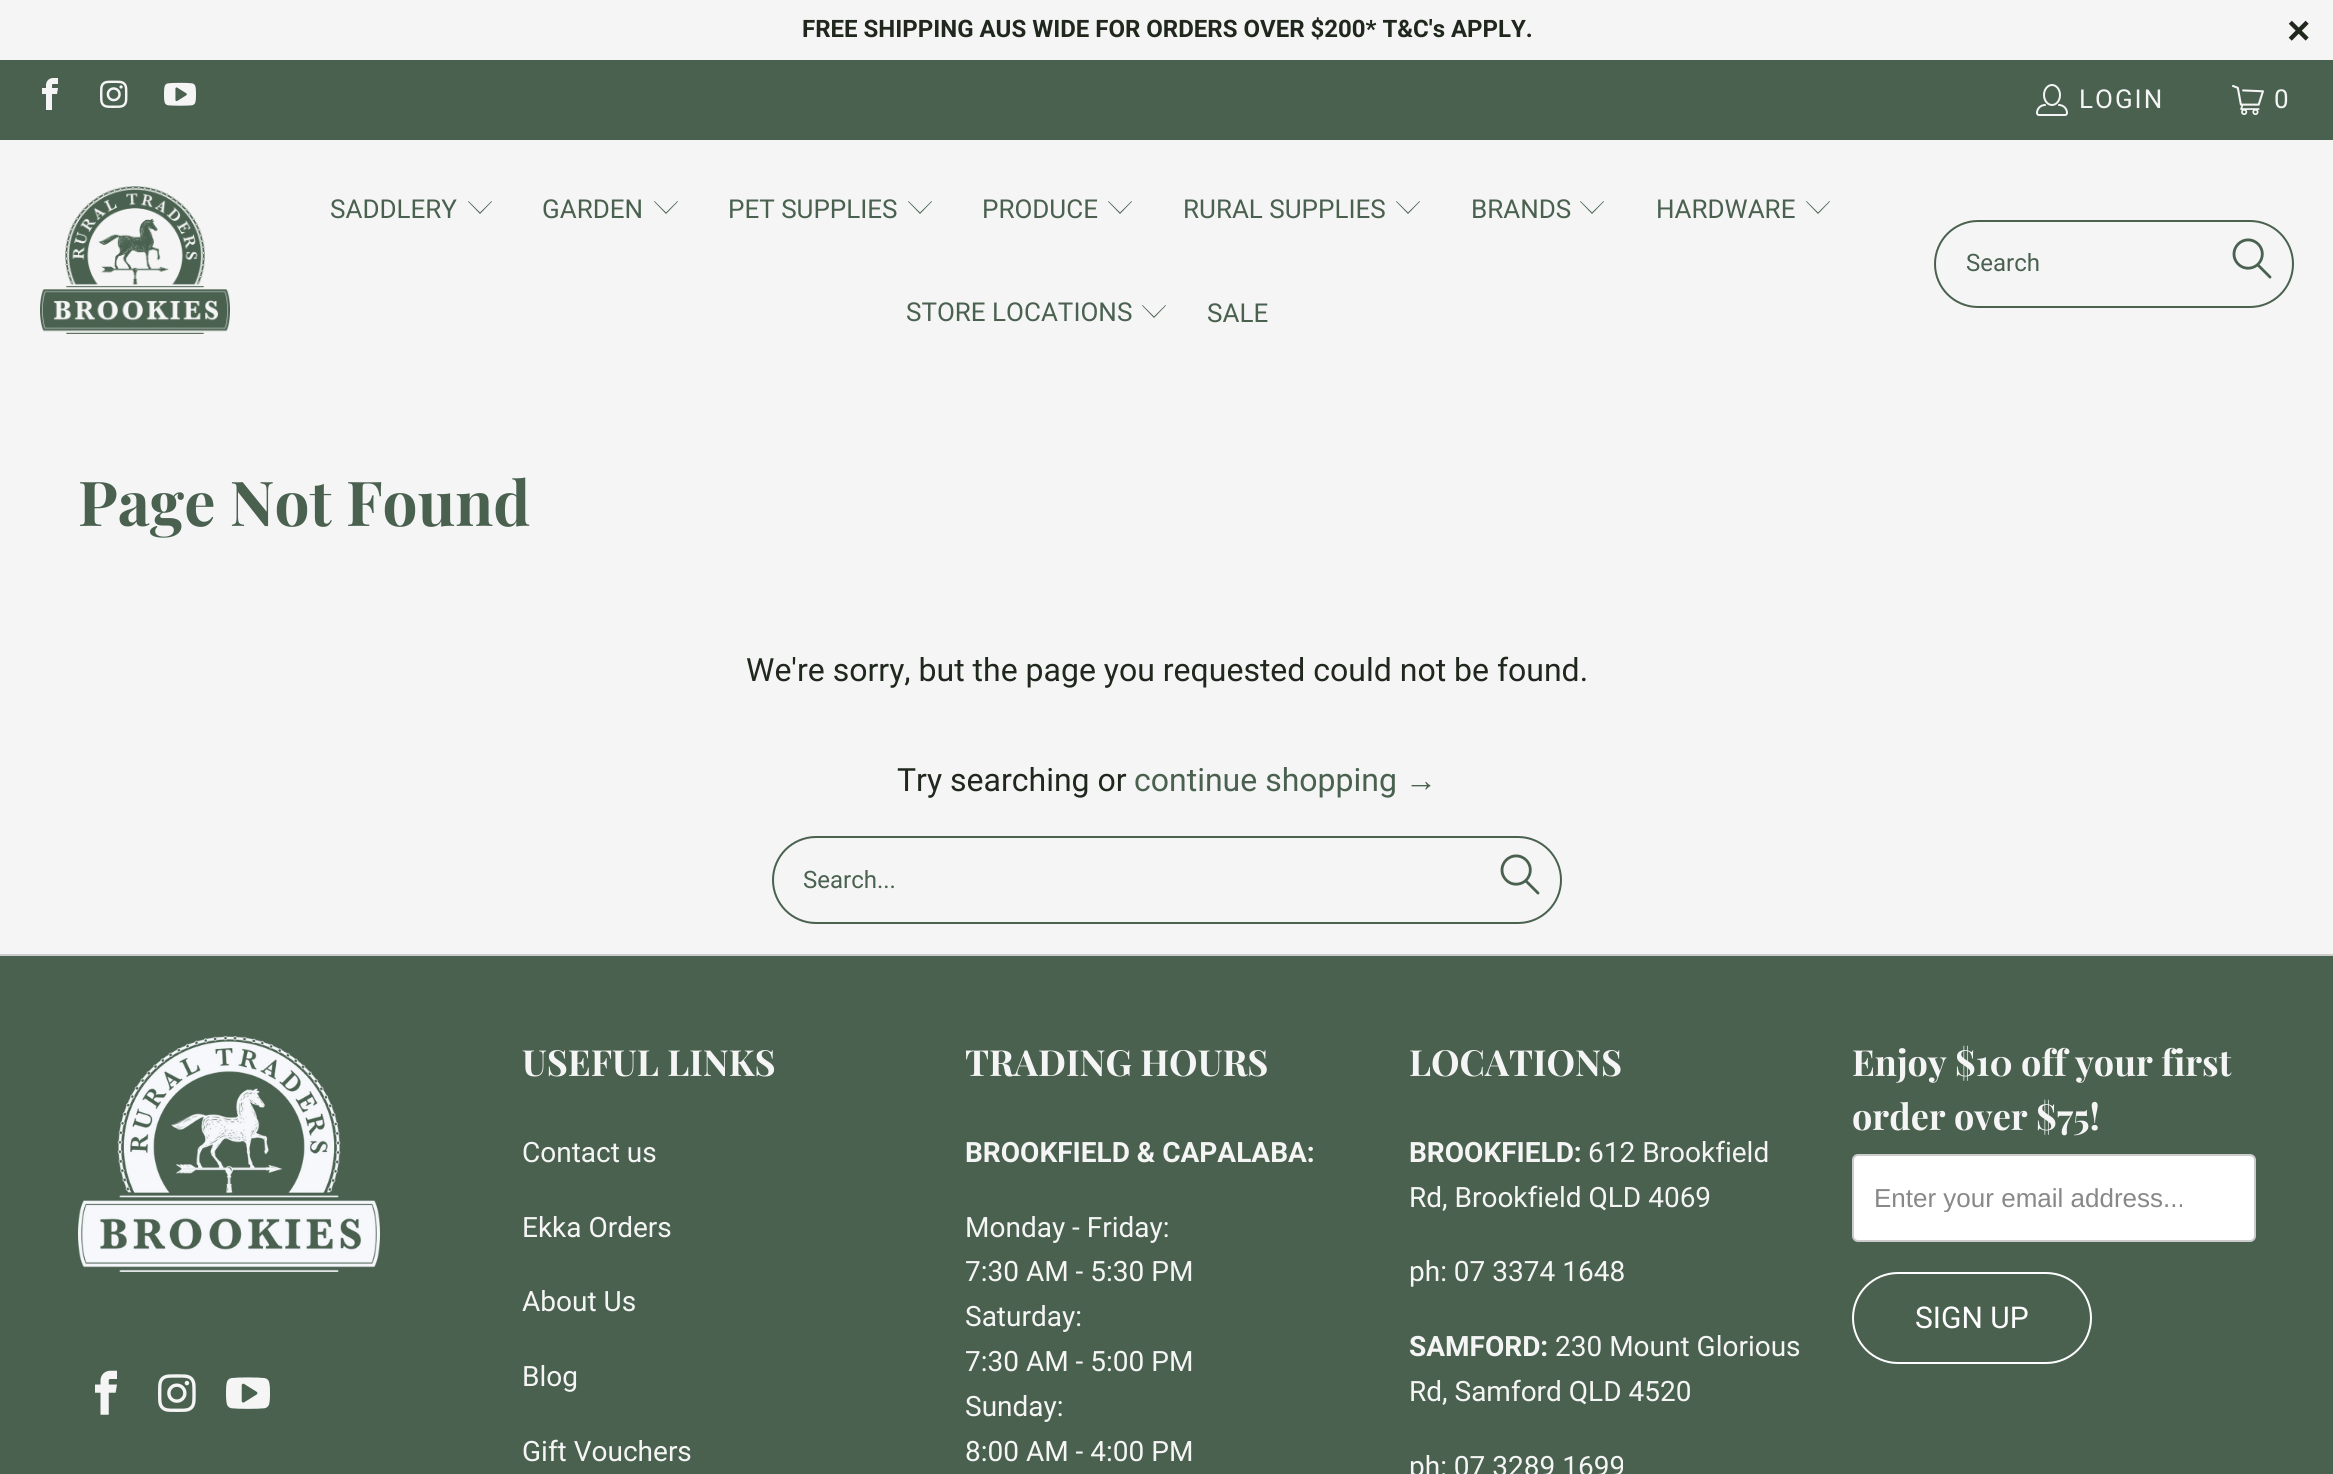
#include <cairo.h>
#include <math.h>
#include <stddef.h>


static void set_color(cairo_t *cr, unsigned color) {
    cairo_set_source_rgb(cr, (color >> 16) / 255.0, (color >> 8 & 255) / 255.0, (color & 255) / 255.0);
}

static void draw_text(cairo_t *cr, double x, double y, const char *s, const char *family, double size, int italic, int bold, unsigned color) {
    cairo_select_font_face(cr, family, italic ? CAIRO_FONT_SLANT_ITALIC : CAIRO_FONT_SLANT_NORMAL,
        bold ? CAIRO_FONT_WEIGHT_BOLD : CAIRO_FONT_WEIGHT_NORMAL);
    cairo_set_font_size(cr, size);
    set_color(cr, color);
    cairo_move_to(cr, x, y);
    cairo_show_text(cr, s);
}

static void draw_spaced(cairo_t *cr, double x, double y, const char *s, double letter, double word) {
    cairo_move_to(cr, x, y);
    while (*s) {
        char ch[5] = {0};
        int n = 0;
        do ch[n++] = *s++; while ((*s & 0xC0) == 0x80);
        cairo_show_text(cr, ch);
        cairo_rel_move_to(cr, letter + word * (*ch == ' '), 0);
    }
}

static void fill_rect(cairo_t *cr, double x, double y, double w, double h, unsigned color) {
    set_color(cr, color);
    cairo_rectangle(cr, x, y, w, h);
    cairo_fill(cr);
}

static void rounded_rect(cairo_t *cr, double x, double y, double w, double h, double r) {
    cairo_new_sub_path(cr);
    cairo_arc(cr, x + w - r, y + h - r, r, 0, M_PI / 2);
    cairo_arc(cr, x + r, y + h - r, r, M_PI / 2, M_PI);
    cairo_arc(cr, x + r, y + r, r, M_PI, 1.5 * M_PI);
    cairo_arc(cr, x + w - r, y + r, r, 1.5 * M_PI, 2 * M_PI);
    cairo_close_path(cr);
}

static void draw_image(cairo_t *cr, const char *path, double x, double y, double w, double h) {
    cairo_surface_t *image = cairo_image_surface_create_from_png(path);
    cairo_save(cr);
    cairo_set_source_surface(cr, image, x, y);
    cairo_rectangle(cr, x, y, w, h);
    cairo_fill(cr);
    cairo_restore(cr);
    cairo_surface_destroy(image);
}

int main(void) {
    cairo_surface_t *surface = cairo_image_surface_create(CAIRO_FORMAT_RGB24, 2333, 1474);
    cairo_t *cr = cairo_create(surface);
    cairo_font_options_t *options = cairo_font_options_create();
    cairo_font_options_set_hint_metrics(options, CAIRO_HINT_METRICS_OFF);
    cairo_font_options_set_hint_style(options, CAIRO_HINT_STYLE_NONE);
    cairo_set_font_options(cr, options);
    cairo_set_miter_limit(cr, 4);
    set_color(cr, 0xF4F5F4);
    cairo_paint(cr);
    draw_text(cr, 802, 37, "FREE SHIPPING AUS WIDE FOR ORDERS OVER $200* T&C's APPLY.", "Roboto", 24, 0, 1, 0x20281E);
    draw_text(cr, 2287, 44, "×", "Liberation Sans", 40, 0, 1, 0x20281E);
    fill_rect(cr, 0, 60, 2333, 80, 0x4A6150);
    draw_image(cr, "assets/img1.png", 42, 78, 16, 32);
    draw_image(cr, "assets/img2.png", 100, 80, 28, 28);
    draw_image(cr, "assets/img3.png", 164, 82, 32, 24);
    draw_image(cr, "assets/img4.png", 2036, 84, 32, 32);
    cairo_select_font_face(cr, "Roboto", CAIRO_FONT_SLANT_NORMAL, CAIRO_FONT_WEIGHT_NORMAL);
    cairo_set_font_size(cr, 26);
    set_color(cr, 0xF4F5F4);
    draw_spaced(cr, 2079, 108, "LOGIN", 2, 0);
    draw_image(cr, "assets/img5.png", 2232, 85, 32, 30);
    draw_spaced(cr, 2274, 108, "0", 2, 0);
    draw_image(cr, "assets/img6.png", 40, 186, 190, 148);
    draw_text(cr, 330, 218, "SADDLERY", "Roboto", 26, 0, 0, 0x4A6150);
    cairo_new_path(cr);
    cairo_move_to(cr, 480, 214);
    cairo_line_to(cr, 468, 201.5);
    cairo_line_to(cr, 468.5, 201);
    cairo_line_to(cr, 480, 212.5);
    cairo_line_to(cr, 491.5, 201);
    cairo_line_to(cr, 492, 201.5);
    cairo_close_path(cr);
    cairo_fill(cr);
    draw_text(cr, 542, 218, "GARDEN", "Roboto", 26, 0, 0, 0x4A6150);
    cairo_new_path(cr);
    cairo_move_to(cr, 666, 214);
    cairo_line_to(cr, 654, 201.5);
    cairo_line_to(cr, 654.5, 201);
    cairo_line_to(cr, 666, 212.5);
    cairo_line_to(cr, 677.5, 201);
    cairo_line_to(cr, 678, 201.5);
    cairo_close_path(cr);
    cairo_fill(cr);
    draw_text(cr, 728, 218, "PET SUPPLIES", "Roboto", 26, 0, 0, 0x4A6150);
    cairo_new_path(cr);
    cairo_move_to(cr, 920, 214);
    cairo_line_to(cr, 908, 201.5);
    cairo_line_to(cr, 908.5, 201);
    cairo_line_to(cr, 920, 212.5);
    cairo_line_to(cr, 931.5, 201);
    cairo_line_to(cr, 932, 201.5);
    cairo_close_path(cr);
    cairo_fill(cr);
    draw_text(cr, 982, 218, "PRODUCE", "Roboto", 26, 0, 0, 0x4A6150);
    cairo_new_path(cr);
    cairo_move_to(cr, 1120, 214);
    cairo_line_to(cr, 1108, 201.5);
    cairo_line_to(cr, 1108.5, 201);
    cairo_line_to(cr, 1120, 212.5);
    cairo_line_to(cr, 1131.5, 201);
    cairo_line_to(cr, 1132, 201.5);
    cairo_close_path(cr);
    cairo_fill(cr);
    draw_text(cr, 1183, 218, "RURAL SUPPLIES", "Roboto", 26, 0, 0, 0x4A6150);
    cairo_new_path(cr);
    cairo_move_to(cr, 1408, 214);
    cairo_line_to(cr, 1396, 201.5);
    cairo_line_to(cr, 1396.5, 201);
    cairo_line_to(cr, 1408, 212.5);
    cairo_line_to(cr, 1419.5, 201);
    cairo_line_to(cr, 1420, 201.5);
    cairo_close_path(cr);
    cairo_fill(cr);
    draw_text(cr, 1471, 218, "BRANDS", "Roboto", 26, 0, 0, 0x4A6150);
    cairo_new_path(cr);
    cairo_move_to(cr, 1592, 214);
    cairo_line_to(cr, 1580, 201.5);
    cairo_line_to(cr, 1580.5, 201);
    cairo_line_to(cr, 1592, 212.5);
    cairo_line_to(cr, 1603.5, 201);
    cairo_line_to(cr, 1604, 201.5);
    cairo_close_path(cr);
    cairo_fill(cr);
    draw_text(cr, 1656, 218, "HARDWARE", "Roboto", 26, 0, 0, 0x4A6150);
    cairo_new_path(cr);
    cairo_move_to(cr, 1818, 214);
    cairo_line_to(cr, 1806, 201.5);
    cairo_line_to(cr, 1806.5, 201);
    cairo_line_to(cr, 1818, 212.5);
    cairo_line_to(cr, 1829.5, 201);
    cairo_line_to(cr, 1830, 201.5);
    cairo_close_path(cr);
    cairo_fill(cr);
    draw_text(cr, 906, 321, "STORE LOCATIONS", "Roboto", 26, 0, 0, 0x4A6150);
    cairo_new_path(cr);
    cairo_move_to(cr, 1154, 318);
    cairo_line_to(cr, 1142, 305.5);
    cairo_line_to(cr, 1142.5, 305);
    cairo_line_to(cr, 1154, 316.5);
    cairo_line_to(cr, 1165.5, 305);
    cairo_line_to(cr, 1166, 305.5);
    cairo_close_path(cr);
    cairo_fill(cr);
    draw_text(cr, 1207, 322, "SALE", "Roboto", 26, 0, 0, 0x4A6150);
    rounded_rect(cr, 1935, 221, 358, 86, 43);
    cairo_stroke(cr);
    draw_text(cr, 1966, 271, "Search", "Roboto", 24, 0, 0, 0x4A6150);
    draw_image(cr, "assets/img7.png", 2232, 238, 40, 41);
    draw_text(cr, 78, 526, "Page Not Found", "Playfair Display", 62, 0, 1, 0x4A6150);
    draw_text(cr, 746, 681, "We're sorry, but the page you requested could not be found.", "Roboto", 32, 0, 0, 0x20281E);
    draw_text(cr, 897, 791, "Try searching or", "Roboto", 32, 0, 0, 0x20281E);
    draw_text(cr, 1134, 791, "continue shopping", "Roboto", 32, 0, 0, 0x4A6150);
    draw_text(cr, 1405, 791, "→", "Liberation Sans", 32, 0, 0, 0x4A6150);
    rounded_rect(cr, 773, 837, 788, 86, 43);
    cairo_stroke(cr);
    draw_text(cr, 803, 888, "Search...", "Roboto", 24, 0, 0, 0x4A6150);
    draw_image(cr, "assets/img7.png", 1500, 854, 40, 41);
    fill_rect(cr, 0, 956, 2333, 518, 0x4A6150);
    fill_rect(cr, 0, 954, 2333, 2, 0xCCCCCC);
    draw_image(cr, "assets/img8.png", 78, 1036, 302, 236);
    draw_image(cr, "assets/img9.png", 95, 1370, 22, 45);
    draw_image(cr, "assets/img10.png", 158, 1374, 38, 38);
    draw_image(cr, "assets/img11.png", 226, 1377, 44, 32);
    draw_text(cr, 522, 1076, "USEFUL LINKS", "Playfair Display", 36, 0, 1, 0xF4F5F4);
    draw_text(cr, 522, 1162, "Contact us", "Roboto", 28, 0, 0, 0xF4F5F4);
    draw_text(cr, 522, 1237, "Ekka Orders", "Roboto", 28, 0, 0, 0xF4F5F4);
    draw_text(cr, 522, 1311, "About Us", "Roboto", 28, 0, 0, 0xF4F5F4);
    draw_text(cr, 522, 1386, "Blog", "Roboto", 28, 0, 0, 0xF4F5F4);
    draw_text(cr, 522, 1461, "Gift Vouchers", "Roboto", 28, 0, 0, 0xF4F5F4);
    draw_text(cr, 965, 1076, "TRADING HOURS", "Playfair Display", 36, 0, 1, 0xF4F5F4);
    draw_text(cr, 965, 1162, "BROOKFIELD & CAPALABA:", "Roboto", 28, 0, 1, 0xF4F5F4);
    draw_text(cr, 965, 1237, "Monday - Friday:", "Roboto", 28, 0, 0, 0xF4F5F4);
    draw_text(cr, 965, 1281, "7:30 AM - 5:30 PM", "Roboto", 28, 0, 0, 0xF4F5F4);
    draw_text(cr, 965, 1326, "Saturday:", "Roboto", 28, 0, 0, 0xF4F5F4);
    draw_text(cr, 965, 1371, "7:30 AM - 5:00 PM", "Roboto", 28, 0, 0, 0xF4F5F4);
    draw_text(cr, 965, 1416, "Sunday:", "Roboto", 28, 0, 0, 0xF4F5F4);
    draw_text(cr, 965, 1461, "8:00 AM - 4:00 PM", "Roboto", 28, 0, 0, 0xF4F5F4);
    draw_text(cr, 1409, 1076, "LOCATIONS", "Playfair Display", 36, 0, 1, 0xF4F5F4);
    draw_text(cr, 1409, 1162, "BROOKFIELD:", "Roboto", 28, 0, 1, 0xF4F5F4);
    draw_text(cr, 1588, 1162, "612 Brookfield", "Roboto", 28, 0, 0, 0xF4F5F4);
    draw_text(cr, 1409, 1207, "Rd, Brookfield QLD 4069", "Roboto", 28, 0, 0, 0xF4F5F4);
    draw_text(cr, 1409, 1281, "ph: 07 3374 1648", "Roboto", 28, 0, 0, 0xF4F5F4);
    draw_text(cr, 1409, 1356, "SAMFORD:", "Roboto", 28, 0, 1, 0xF4F5F4);
    draw_text(cr, 1555, 1356, "230 Mount Glorious", "Roboto", 28, 0, 0, 0xF4F5F4);
    draw_text(cr, 1409, 1401, "Rd, Samford QLD 4520", "Roboto", 28, 0, 0, 0xF4F5F4);
    draw_text(cr, 1409, 1476, "ph: 07 3289 1699", "Roboto", 28, 0, 0, 0xF4F5F4);
    draw_text(cr, 1852, 1076, "Enjoy $10 off your first", "Playfair Display", 36, 0, 1, 0xF4F5F4);
    draw_text(cr, 1852, 1130, "order over $75!", "Playfair Display", 36, 0, 1, 0xF4F5F4);
    set_color(cr, 0xFFFFFF);
    rounded_rect(cr, 1853, 1155, 402, 86, 5);
    cairo_fill_preserve(cr);
    set_color(cr, 0xCCCCCC);
    cairo_stroke(cr);
    cairo_save(cr);
    cairo_rectangle(cr, 1874, 1182, 360, 30);
    cairo_clip(cr);
    draw_text(cr, 1874, 1207, "Enter your email address...", "Liberation Sans", 26, 0, 0, 0x888888);
    cairo_restore(cr);
    rounded_rect(cr, 1853, 1273, 238, 90, 45);
    set_color(cr, 0xFFFFFF);
    cairo_stroke(cr);
    draw_text(cr, 1915, 1328, "SIGN UP", "Roboto", 30, 0, 0, 0xFFFFFF);
    cairo_surface_write_to_png(surface, "output.png");
    cairo_font_options_destroy(options);
    cairo_destroy(cr);
    cairo_surface_destroy(surface);
    return 0;
}
